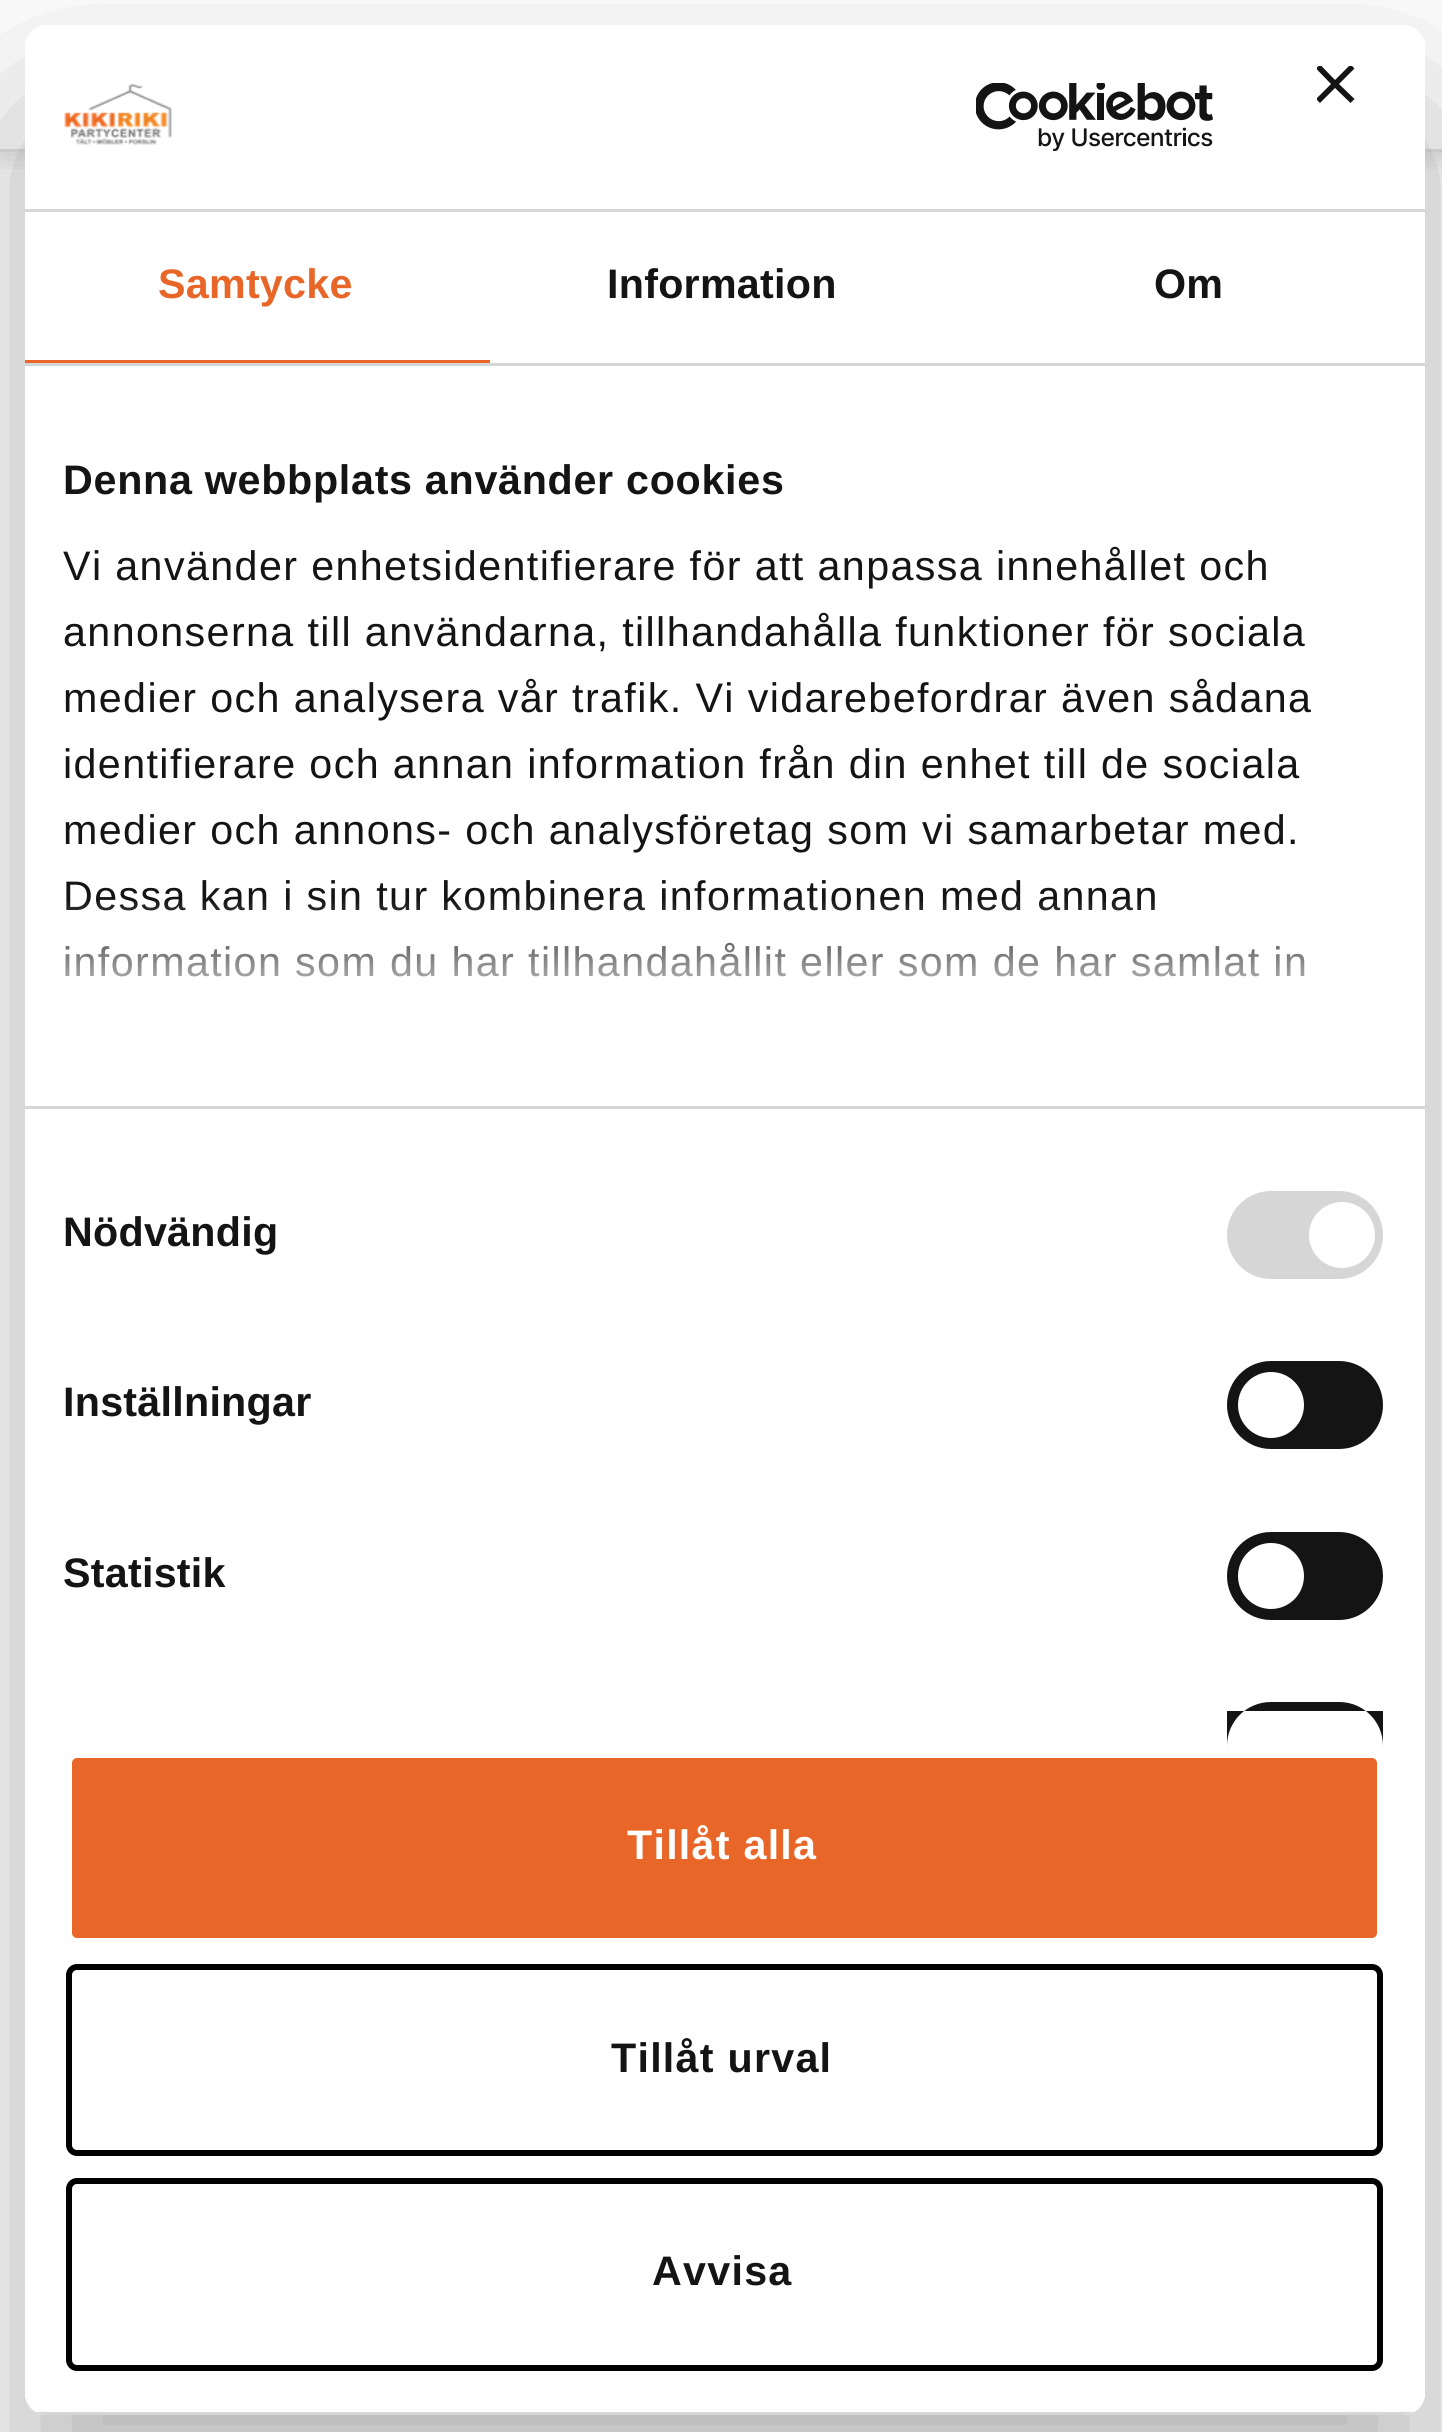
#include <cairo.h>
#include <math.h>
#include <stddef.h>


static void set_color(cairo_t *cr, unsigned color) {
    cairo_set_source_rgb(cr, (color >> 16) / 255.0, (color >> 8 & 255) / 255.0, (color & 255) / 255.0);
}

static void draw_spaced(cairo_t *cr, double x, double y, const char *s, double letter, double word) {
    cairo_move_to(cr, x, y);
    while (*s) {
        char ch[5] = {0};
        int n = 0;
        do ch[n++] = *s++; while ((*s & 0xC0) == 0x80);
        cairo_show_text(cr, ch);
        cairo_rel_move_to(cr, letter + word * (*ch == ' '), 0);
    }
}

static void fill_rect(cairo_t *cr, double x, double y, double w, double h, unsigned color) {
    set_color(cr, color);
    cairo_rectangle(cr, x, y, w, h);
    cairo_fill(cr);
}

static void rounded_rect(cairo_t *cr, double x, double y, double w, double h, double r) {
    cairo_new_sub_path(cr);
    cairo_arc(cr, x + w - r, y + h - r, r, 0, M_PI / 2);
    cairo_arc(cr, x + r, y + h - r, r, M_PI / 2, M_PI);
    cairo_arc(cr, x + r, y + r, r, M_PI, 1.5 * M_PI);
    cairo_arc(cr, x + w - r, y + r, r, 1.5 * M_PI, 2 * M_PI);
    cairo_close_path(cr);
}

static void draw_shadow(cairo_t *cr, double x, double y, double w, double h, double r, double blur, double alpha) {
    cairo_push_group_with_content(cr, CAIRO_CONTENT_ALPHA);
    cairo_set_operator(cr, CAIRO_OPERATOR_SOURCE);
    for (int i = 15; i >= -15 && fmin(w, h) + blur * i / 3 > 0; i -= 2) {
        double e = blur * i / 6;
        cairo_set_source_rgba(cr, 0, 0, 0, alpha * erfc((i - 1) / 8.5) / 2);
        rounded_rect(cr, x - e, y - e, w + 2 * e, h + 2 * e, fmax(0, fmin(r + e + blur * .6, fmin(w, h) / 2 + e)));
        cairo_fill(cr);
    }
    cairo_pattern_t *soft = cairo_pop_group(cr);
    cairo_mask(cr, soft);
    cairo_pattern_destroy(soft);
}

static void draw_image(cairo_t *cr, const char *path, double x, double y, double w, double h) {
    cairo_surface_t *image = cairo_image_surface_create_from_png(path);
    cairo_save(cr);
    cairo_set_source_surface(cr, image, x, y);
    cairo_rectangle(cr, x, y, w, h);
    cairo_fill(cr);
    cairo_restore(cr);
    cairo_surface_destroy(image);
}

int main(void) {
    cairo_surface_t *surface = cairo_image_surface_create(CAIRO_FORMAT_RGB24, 1442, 2432);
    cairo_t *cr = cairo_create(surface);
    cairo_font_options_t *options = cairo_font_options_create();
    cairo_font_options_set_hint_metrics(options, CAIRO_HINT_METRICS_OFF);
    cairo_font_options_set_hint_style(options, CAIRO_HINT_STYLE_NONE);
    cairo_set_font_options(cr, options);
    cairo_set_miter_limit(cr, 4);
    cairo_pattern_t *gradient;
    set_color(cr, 0xFFFFFF);
    cairo_paint(cr);
    cairo_save(cr);
    cairo_rectangle(cr, 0, 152, 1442, 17);
    cairo_clip(cr);
    set_color(cr, 0x000000);
    draw_shadow(cr, 3, 3, 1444, 151, 0, 14, 0.15);
    cairo_restore(cr);
    fill_rect(cr, 0, 149, 1442, 3, 0xE4E4E4);
    cairo_save(cr);
    cairo_set_fill_rule(cr, CAIRO_FILL_RULE_EVEN_ODD);
    cairo_new_path(cr);
    cairo_move_to(cr, 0, 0);
    cairo_line_to(cr, 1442, 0);
    cairo_line_to(cr, 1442, 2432);
    cairo_line_to(cr, 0, 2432);
    cairo_close_path(cr);
    cairo_move_to(cr, 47, 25);
    cairo_line_to(cr, 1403, 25);
    cairo_curve_to(cr, 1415, 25, 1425, 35, 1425, 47);
    cairo_line_to(cr, 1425, 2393);
    cairo_curve_to(cr, 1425, 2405, 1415, 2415, 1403, 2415);
    cairo_line_to(cr, 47, 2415);
    cairo_curve_to(cr, 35, 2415, 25, 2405, 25, 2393);
    cairo_line_to(cr, 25, 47);
    cairo_curve_to(cr, 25, 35, 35, 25, 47, 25);
    cairo_close_path(cr);
    cairo_clip(cr);
    set_color(cr, 0x000000);
    draw_shadow(cr, 25, 113, 1400, 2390, 22, 93.5, 0.3);
    cairo_restore(cr);
    set_color(cr, 0xFFFFFF);
    rounded_rect(cr, 25, 25, 1400, 2390, 22);
    cairo_fill(cr);
    fill_rect(cr, 25, 209, 1400, 3, 0xD6D6D6);
    draw_image(cr, "assets/img1.png", 64, 83, 108, 62);
    draw_image(cr, "assets/img2.png", 976, 83, 238, 68);
    cairo_save(cr);
    cairo_rectangle(cr, 1317, 66, 39, 39);
    cairo_clip(cr);
    set_color(cr, 0x141414);
    cairo_new_path(cr);
    cairo_move_to(cr, 1354.5, 68.5);
    cairo_line_to(cr, 1350.5, 64.5);
    cairo_line_to(cr, 1335, 80);
    cairo_line_to(cr, 1320, 64.5);
    cairo_line_to(cr, 1316, 68.5);
    cairo_line_to(cr, 1331, 84);
    cairo_line_to(cr, 1316, 99);
    cairo_line_to(cr, 1320, 103);
    cairo_line_to(cr, 1335, 88);
    cairo_line_to(cr, 1350.5, 103);
    cairo_line_to(cr, 1354.5, 99);
    cairo_line_to(cr, 1339, 84);
    cairo_close_path(cr);
    cairo_fill(cr);
    cairo_restore(cr);
    fill_rect(cr, 25, 363, 1400, 3, 0xD6D6D6);
    fill_rect(cr, 25, 360, 465, 3, 0xE86628);
    cairo_select_font_face(cr, "Liberation Sans", CAIRO_FONT_SLANT_NORMAL, CAIRO_FONT_WEIGHT_BOLD);
    cairo_set_font_size(cr, 41.25);
    draw_spaced(cr, 158, 298, "Samtycke", 0.25, 0);
    set_color(cr, 0x141414);
    draw_spaced(cr, 607, 298, "Information", 0.25, 0);
    draw_spaced(cr, 1154, 298, "Om", 0.25, 0);
    fill_rect(cr, 25, 1106, 1400, 3, 0xD6D6D6);
    set_color(cr, 0x141414);
    draw_spaced(cr, 63, 494, "Denna webbplats använder cookies", 0.7, 0);
    cairo_select_font_face(cr, "Liberation Sans", CAIRO_FONT_SLANT_NORMAL, CAIRO_FONT_WEIGHT_NORMAL);
    draw_spaced(cr, 63, 580, "Vi använder enhetsidentifierare för att anpassa innehållet och", 1.38, 0);
    draw_spaced(cr, 63, 646, "annonserna till användarna, tillhandahålla funktioner för sociala", 1.38, 0);
    draw_spaced(cr, 63, 712, "medier och analysera vår trafik. Vi vidarebefordrar även sådana", 1.38, 0);
    draw_spaced(cr, 63, 778, "identifierare och annan information från din enhet till de sociala", 1.38, 0);
    draw_spaced(cr, 63, 844, "medier och annons- och analysföretag som vi samarbetar med.", 1.38, 0);
    draw_spaced(cr, 63, 910, "Dessa kan i sin tur kombinera informationen med annan", 1.38, 0);
    draw_spaced(cr, 63, 976, "information som du har tillhandahållit eller som de har samlat in", 1.38, 0);
    gradient = cairo_pattern_create_linear(705, 1104, 705, 898);
    cairo_pattern_add_color_stop_rgba(gradient, 0, 1, 1, 1, 1);
    cairo_pattern_add_color_stop_rgba(gradient, 0.5, 1, 1, 1, 0.8);
    cairo_pattern_add_color_stop_rgba(gradient, 1, 1, 1, 1, 0);
    cairo_set_source(cr, gradient);
    cairo_pattern_destroy(gradient);
    cairo_rectangle(cr, 66, 901, 1239, 76);
    cairo_fill(cr);
    cairo_select_font_face(cr, "Liberation Sans", CAIRO_FONT_SLANT_NORMAL, CAIRO_FONT_WEIGHT_BOLD);
    set_color(cr, 0x141414);
    draw_spaced(cr, 63, 1246, "Nödvändig", 0.25, 0);
    set_color(cr, 0xD6D6D6);
    rounded_rect(cr, 1227, 1191, 156, 88, 44);
    cairo_fill(cr);
    set_color(cr, 0xFFFFFF);
    cairo_arc(cr, 1342, 1235, 33, 0, 2 * M_PI);
    cairo_fill(cr);
    set_color(cr, 0x141414);
    draw_spaced(cr, 63, 1416, "Inställningar", 0.25, 0);
    rounded_rect(cr, 1227, 1361, 156, 88, 44);
    cairo_fill(cr);
    set_color(cr, 0xFFFFFF);
    cairo_arc(cr, 1271, 1405, 33, 0, 2 * M_PI);
    cairo_fill(cr);
    set_color(cr, 0x141414);
    draw_spaced(cr, 63, 1587, "Statistik", 0.25, 0);
    rounded_rect(cr, 1227, 1532, 156, 88, 44);
    cairo_fill(cr);
    set_color(cr, 0xFFFFFF);
    cairo_arc(cr, 1271, 1576, 33, 0, 2 * M_PI);
    cairo_fill(cr);
    set_color(cr, 0x141414);
    cairo_new_path(cr);
    cairo_move_to(cr, 1271, 1702);
    cairo_line_to(cr, 1339, 1702);
    cairo_curve_to(cr, 1363.5, 1702, 1383, 1721.5, 1383, 1746);
    cairo_line_to(cr, 1383, 1711);
    cairo_line_to(cr, 1227, 1711);
    cairo_line_to(cr, 1227, 1746);
    cairo_curve_to(cr, 1227, 1721.5, 1246.5, 1702, 1271, 1702);
    cairo_close_path(cr);
    cairo_fill(cr);
    cairo_save(cr);
    rounded_rect(cr, 25, 25, 1400, 2390, 22);
    cairo_clip(cr);
    fill_rect(cr, 36, 2412, 1378, 3, 0xD6D6D6);
    cairo_restore(cr);
    set_color(cr, 0xE86628);
    rounded_rect(cr, 69, 1755, 1311, 186, 8);
    cairo_fill_preserve(cr);
    set_color(cr, 0xFFFFFF);
    cairo_set_line_width(cr, 6);
    cairo_stroke(cr);
    draw_spaced(cr, 627, 1859, "Tillåt alla", 1.25, 0);
    rounded_rect(cr, 69, 1967, 1311, 186, 8);
    set_color(cr, 0x000000);
    cairo_stroke(cr);
    set_color(cr, 0x141414);
    draw_spaced(cr, 611, 2072, "Tillåt urval", 1.25, 0);
    rounded_rect(cr, 69, 2181, 1311, 187, 8);
    set_color(cr, 0x000000);
    cairo_stroke(cr);
    set_color(cr, 0x141414);
    draw_spaced(cr, 652, 2285, "Avvisa", 1.25, 0);
    cairo_surface_write_to_png(surface, "output.png");
    cairo_font_options_destroy(options);
    cairo_destroy(cr);
    cairo_surface_destroy(surface);
    return 0;
}
